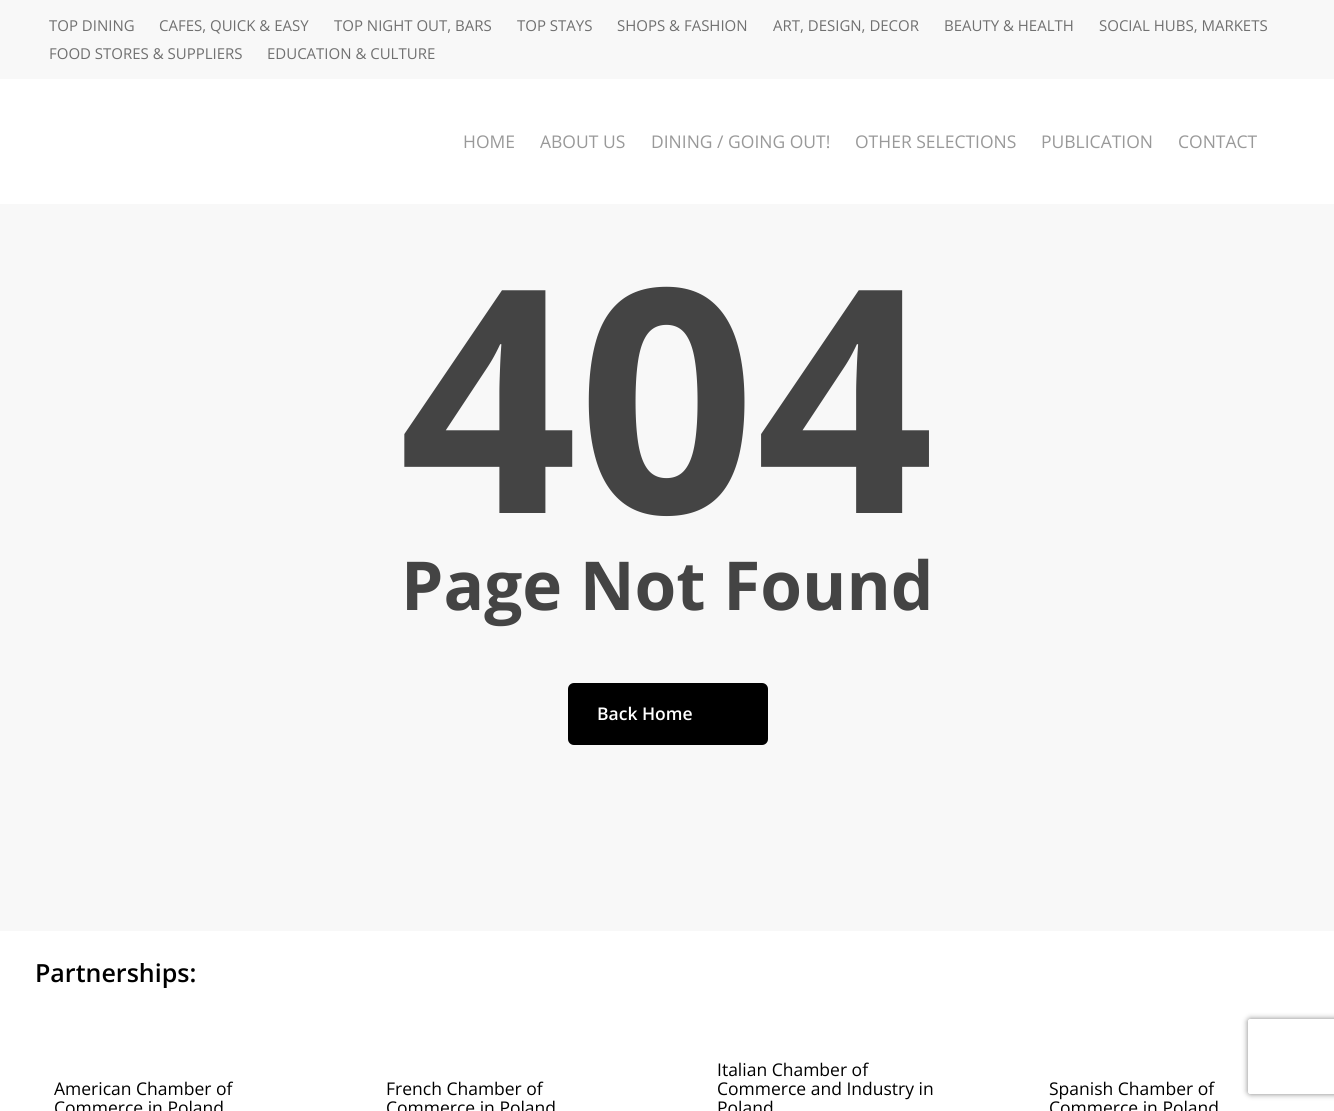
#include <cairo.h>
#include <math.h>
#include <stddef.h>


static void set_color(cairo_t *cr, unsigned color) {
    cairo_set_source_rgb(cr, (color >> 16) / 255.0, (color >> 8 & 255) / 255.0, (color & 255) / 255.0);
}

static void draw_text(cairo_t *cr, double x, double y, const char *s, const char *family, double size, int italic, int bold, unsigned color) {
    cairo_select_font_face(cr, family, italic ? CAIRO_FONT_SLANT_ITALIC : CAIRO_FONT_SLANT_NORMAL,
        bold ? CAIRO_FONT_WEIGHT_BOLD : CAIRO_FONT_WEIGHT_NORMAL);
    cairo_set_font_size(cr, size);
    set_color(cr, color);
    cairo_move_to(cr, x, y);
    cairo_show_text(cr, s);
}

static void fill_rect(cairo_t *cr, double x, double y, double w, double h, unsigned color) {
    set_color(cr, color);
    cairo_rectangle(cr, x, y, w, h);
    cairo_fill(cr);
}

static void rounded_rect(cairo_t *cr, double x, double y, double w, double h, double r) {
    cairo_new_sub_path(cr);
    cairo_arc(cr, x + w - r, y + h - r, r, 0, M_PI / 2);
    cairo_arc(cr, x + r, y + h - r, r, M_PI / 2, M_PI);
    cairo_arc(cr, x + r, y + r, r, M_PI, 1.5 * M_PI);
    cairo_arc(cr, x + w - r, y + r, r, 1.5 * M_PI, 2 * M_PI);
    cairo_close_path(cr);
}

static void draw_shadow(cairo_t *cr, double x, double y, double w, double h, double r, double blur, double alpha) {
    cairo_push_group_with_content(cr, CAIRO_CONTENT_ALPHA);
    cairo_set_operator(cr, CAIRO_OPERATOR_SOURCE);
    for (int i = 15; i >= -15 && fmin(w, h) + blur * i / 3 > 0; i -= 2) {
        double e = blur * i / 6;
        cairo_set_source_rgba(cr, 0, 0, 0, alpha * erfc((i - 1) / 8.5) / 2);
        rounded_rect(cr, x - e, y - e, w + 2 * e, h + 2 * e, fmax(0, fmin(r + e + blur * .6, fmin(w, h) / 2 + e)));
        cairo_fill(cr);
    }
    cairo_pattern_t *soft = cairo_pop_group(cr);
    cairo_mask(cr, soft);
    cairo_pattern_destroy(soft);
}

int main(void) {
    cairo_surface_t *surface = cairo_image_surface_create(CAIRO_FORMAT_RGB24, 1334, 1111);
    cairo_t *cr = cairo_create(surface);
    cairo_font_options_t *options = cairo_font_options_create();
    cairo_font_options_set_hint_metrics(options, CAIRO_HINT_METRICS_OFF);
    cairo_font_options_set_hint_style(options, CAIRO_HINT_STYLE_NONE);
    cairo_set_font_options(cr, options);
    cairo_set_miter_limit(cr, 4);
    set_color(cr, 0xFFFFFF);
    cairo_paint(cr);
    fill_rect(cr, 0, 0, 1334, 79, 0xF8F8F8);
    draw_text(cr, 49, 31, "TOP DINING", "Open Sans", 15, 0, 0, 0x707070);
    draw_text(cr, 159, 31, "CAFES, QUICK & EASY", "Open Sans", 15, 0, 0, 0x707070);
    draw_text(cr, 334, 31, "TOP NIGHT OUT, BARS", "Open Sans", 15, 0, 0, 0x707070);
    draw_text(cr, 517, 31, "TOP STAYS", "Open Sans", 15, 0, 0, 0x707070);
    draw_text(cr, 617, 31, "SHOPS & FASHION", "Open Sans", 15, 0, 0, 0x707070);
    draw_text(cr, 773, 31, "ART, DESIGN, DECOR", "Open Sans", 15, 0, 0, 0x707070);
    draw_text(cr, 944, 31, "BEAUTY & HEALTH", "Open Sans", 15, 0, 0, 0x707070);
    draw_text(cr, 1099, 31, "SOCIAL HUBS, MARKETS", "Open Sans", 15, 0, 0, 0x707070);
    draw_text(cr, 49, 59, "FOOD STORES & SUPPLIERS", "Open Sans", 15, 0, 0, 0x707070);
    draw_text(cr, 267, 59, "EDUCATION & CULTURE", "Open Sans", 15, 0, 0, 0x707070);
    draw_text(cr, 463, 148, "HOME", "Open Sans", 17.5, 0, 0, 0x999999);
    draw_text(cr, 540, 148, "ABOUT US", "Open Sans", 17.5, 0, 0, 0x999999);
    draw_text(cr, 651, 148, "DINING / GOING OUT!", "Open Sans", 17.5, 0, 0, 0x999999);
    draw_text(cr, 855, 148, "OTHER SELECTIONS", "Open Sans", 17.5, 0, 0, 0x999999);
    draw_text(cr, 1041, 148, "PUBLICATION", "Open Sans", 17.5, 0, 0, 0x999999);
    draw_text(cr, 1178, 148, "CONTACT", "Open Sans", 17.5, 0, 0, 0x999999);
    fill_rect(cr, 0, 204, 1334, 727, 0xF8F8F8);
    draw_text(cr, 399, 513, "404", "Open Sans", 312, 0, 1, 0x444444);
    draw_text(cr, 401, 610, "Page Not Found", "Open Sans", 67.5, 0, 1, 0x444444);
    set_color(cr, 0x000000);
    rounded_rect(cr, 568, 683, 200, 62, 6);
    cairo_fill(cr);
    cairo_set_source_rgba(cr, 0, 0, 0, 0.1);
    cairo_new_path(cr);
    cairo_move_to(cr, 568, 735);
    cairo_line_to(cr, 568, 739);
    cairo_curve_to(cr, 568, 742, 571, 745, 574, 745);
    cairo_line_to(cr, 762, 745);
    cairo_curve_to(cr, 765, 745, 768, 742, 768, 739);
    cairo_line_to(cr, 768, 735);
    cairo_curve_to(cr, 768, 738, 765, 741, 761, 741);
    cairo_line_to(cr, 574, 741);
    cairo_curve_to(cr, 570, 741, 568, 738, 568, 735);
    cairo_close_path(cr);
    cairo_fill(cr);
    draw_text(cr, 597, 720, "Back Home", "Open Sans SemiBold", 17.5, 0, 0, 0xFFFFFF);
    draw_text(cr, 35, 982, "Partnerships:", "Open Sans SemiBold", 25, 0, 0, 0x000000);
    draw_text(cr, 54, 1095, "American Chamber of", "Open Sans", 17.5, 0, 0, 0x000000);
    draw_text(cr, 54, 1114, "Commerce in Poland", "Open Sans", 17.5, 0, 0, 0x000000);
    draw_text(cr, 386, 1095, "French Chamber of", "Open Sans", 17.5, 0, 0, 0x000000);
    draw_text(cr, 386, 1114, "Commerce in Poland", "Open Sans", 17.5, 0, 0, 0x000000);
    draw_text(cr, 717, 1076, "Italian Chamber of", "Open Sans", 17.5, 0, 0, 0x000000);
    draw_text(cr, 717, 1095, "Commerce and Industry in", "Open Sans", 17.5, 0, 0, 0x000000);
    draw_text(cr, 717, 1114, "Poland", "Open Sans", 17.5, 0, 0, 0x000000);
    draw_text(cr, 1049, 1095, "Spanish Chamber of", "Open Sans", 17.5, 0, 0, 0x000000);
    draw_text(cr, 1049, 1114, "Commerce in Poland", "Open Sans", 17.5, 0, 0, 0x000000);
    cairo_save(cr);
    cairo_set_fill_rule(cr, CAIRO_FILL_RULE_EVEN_ODD);
    cairo_new_path(cr);
    cairo_move_to(cr, 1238, 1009);
    cairo_line_to(cr, 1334, 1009);
    cairo_line_to(cr, 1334, 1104);
    cairo_line_to(cr, 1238, 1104);
    cairo_close_path(cr);
    cairo_move_to(cr, 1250.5, 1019);
    cairo_line_to(cr, 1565.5, 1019);
    cairo_curve_to(cr, 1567, 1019, 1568, 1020, 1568, 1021.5);
    cairo_line_to(cr, 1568, 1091.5);
    cairo_curve_to(cr, 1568, 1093, 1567, 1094, 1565.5, 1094);
    cairo_line_to(cr, 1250.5, 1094);
    cairo_curve_to(cr, 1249, 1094, 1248, 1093, 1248, 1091.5);
    cairo_line_to(cr, 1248, 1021.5);
    cairo_curve_to(cr, 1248, 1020, 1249, 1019, 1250.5, 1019);
    cairo_close_path(cr);
    cairo_clip(cr);
    set_color(cr, 0x808080);
    draw_shadow(cr, 1248, 1019, 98, 75, 2.5, 3, 1);
    cairo_restore(cr);
    cairo_surface_write_to_png(surface, "output.png");
    cairo_font_options_destroy(options);
    cairo_destroy(cr);
    cairo_surface_destroy(surface);
    return 0;
}
